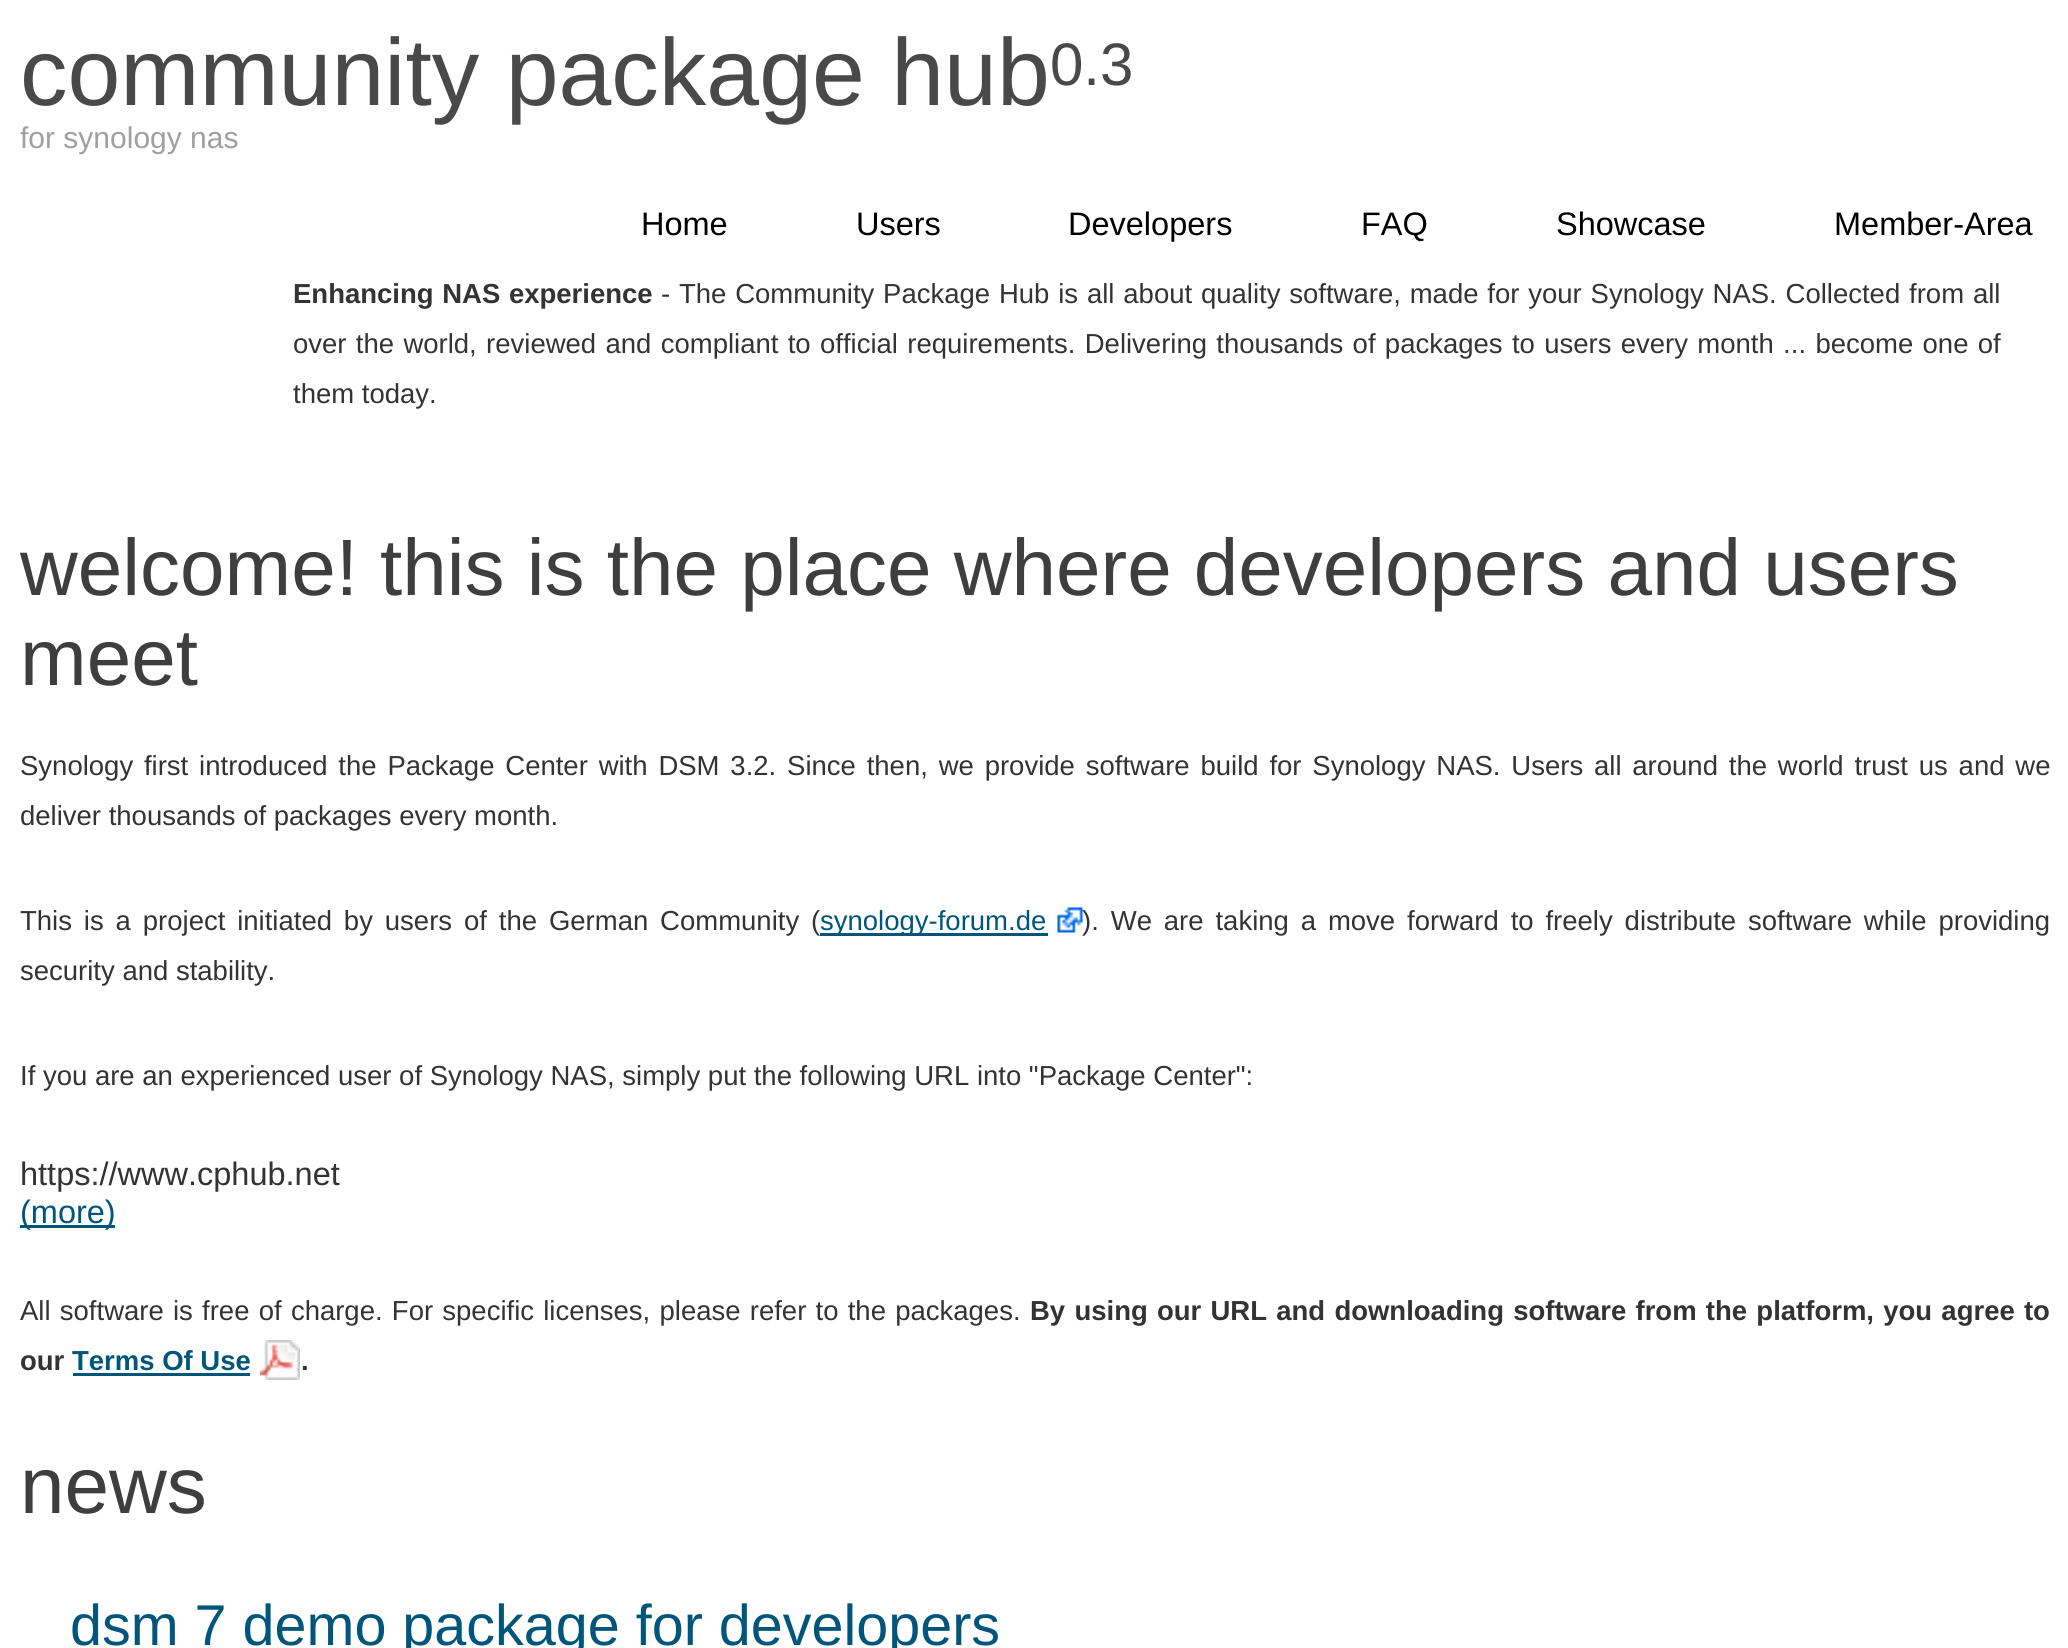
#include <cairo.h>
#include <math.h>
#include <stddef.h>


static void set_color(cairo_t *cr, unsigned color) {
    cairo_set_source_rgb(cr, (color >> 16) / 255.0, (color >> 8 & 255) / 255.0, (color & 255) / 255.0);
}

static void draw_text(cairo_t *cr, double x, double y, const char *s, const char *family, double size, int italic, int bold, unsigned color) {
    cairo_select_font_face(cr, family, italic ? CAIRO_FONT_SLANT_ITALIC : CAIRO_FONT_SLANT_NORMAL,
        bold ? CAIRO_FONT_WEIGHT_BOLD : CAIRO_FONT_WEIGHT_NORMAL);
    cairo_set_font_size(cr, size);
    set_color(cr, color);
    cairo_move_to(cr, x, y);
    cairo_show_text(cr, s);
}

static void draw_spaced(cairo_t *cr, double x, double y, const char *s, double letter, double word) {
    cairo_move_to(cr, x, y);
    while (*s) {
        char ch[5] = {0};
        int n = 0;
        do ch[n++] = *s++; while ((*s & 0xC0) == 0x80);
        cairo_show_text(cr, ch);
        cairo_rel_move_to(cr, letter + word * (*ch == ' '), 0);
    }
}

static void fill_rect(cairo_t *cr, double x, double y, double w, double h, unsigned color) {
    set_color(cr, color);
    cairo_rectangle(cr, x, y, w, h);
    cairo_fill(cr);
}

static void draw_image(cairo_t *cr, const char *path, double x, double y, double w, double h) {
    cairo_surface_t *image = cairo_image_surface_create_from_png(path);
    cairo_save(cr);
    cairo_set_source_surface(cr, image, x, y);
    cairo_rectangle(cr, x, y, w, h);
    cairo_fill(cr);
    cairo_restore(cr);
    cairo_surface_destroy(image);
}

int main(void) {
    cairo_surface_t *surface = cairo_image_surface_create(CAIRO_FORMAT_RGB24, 2068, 1648);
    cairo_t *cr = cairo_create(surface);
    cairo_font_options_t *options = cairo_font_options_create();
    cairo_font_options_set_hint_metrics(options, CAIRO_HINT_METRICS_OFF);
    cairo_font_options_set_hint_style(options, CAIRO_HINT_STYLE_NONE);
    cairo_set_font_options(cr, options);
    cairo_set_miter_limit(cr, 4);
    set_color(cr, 0xFFFFFF);
    cairo_paint(cr);
    draw_text(cr, 20, 105, "community package hub", "Liberation Sans", 95, 0, 0, 0x494949);
    draw_text(cr, 1050, 85, "0.3", "Liberation Sans", 60, 0, 0, 0x494949);
    draw_text(cr, 20, 148, "for synology nas", "Liberation Sans", 30, 0, 0, 0xA0A0A0);
    draw_text(cr, 641, 235, "Home", "Liberation Sans", 32.5, 0, 0, 0x000000);
    draw_text(cr, 856, 235, "Users", "Liberation Sans", 32.5, 0, 0, 0x000000);
    draw_text(cr, 1068, 235, "Developers", "Liberation Sans", 32.5, 0, 0, 0x000000);
    draw_text(cr, 1361, 235, "FAQ", "Liberation Sans", 32.5, 0, 0, 0x000000);
    draw_text(cr, 1556, 235, "Showcase", "Liberation Sans", 32.5, 0, 0, 0x000000);
    draw_text(cr, 1834, 235, "Member-Area", "Liberation Sans", 32.5, 0, 0, 0x000000);
    cairo_select_font_face(cr, "Liberation Sans", CAIRO_FONT_SLANT_NORMAL, CAIRO_FONT_WEIGHT_BOLD);
    cairo_set_font_size(cr, 27.5);
    set_color(cr, 0x333333);
    draw_spaced(cr, 293, 303, "Enhancing NAS experience", 0, 1);
    cairo_select_font_face(cr, "Liberation Sans", CAIRO_FONT_SLANT_NORMAL, CAIRO_FONT_WEIGHT_NORMAL);
    draw_spaced(cr, 661, 303, "- The Community Package Hub is all about quality software, made for your Synology NAS. Collected from all", 0, 1.2);
    draw_spaced(cr, 293, 353, "over the world, reviewed and compliant to official requirements. Delivering thousands of packages to users every month ... become one of", 0, 1.7);
    draw_text(cr, 293, 403, "them today.", "Liberation Sans", 27.5, 0, 0, 0x333333);
    draw_text(cr, 20, 595, "welcome! this is the place where developers and users", "Liberation Sans", 80, 0, 0, 0x3E3E3E);
    draw_text(cr, 20, 685, "meet", "Liberation Sans", 80, 0, 0, 0x3E3E3E);
    cairo_set_font_size(cr, 27.5);
    set_color(cr, 0x333333);
    draw_spaced(cr, 20, 775, "Synology first introduced the Package Center with DSM 3.2. Since then, we provide software build for Synology NAS. Users all around the world trust us and we", 0, 3.2);
    draw_text(cr, 20, 825, "deliver thousands of packages every month.", "Liberation Sans", 27.5, 0, 0, 0x333333);
    draw_spaced(cr, 20, 930, "This is a project initiated by users of the German Community (", 0, 4.25);
    fill_rect(cr, 820, 933, 228, 3, 0x00567A);
    draw_text(cr, 820, 930, "synology-forum.de", "Liberation Sans", 27.5, 0, 0, 0x00567A);
    draw_image(cr, "assets/img1.png", 1057, 907, 26, 26);
    set_color(cr, 0x333333);
    draw_spaced(cr, 1082, 930, "). We are taking a move forward to freely distribute software while providing", 0, 4.25);
    draw_text(cr, 20, 980, "security and stability.", "Liberation Sans", 27.5, 0, 0, 0x333333);
    draw_text(cr, 20, 1085, "If you are an experienced user of Synology NAS, simply put the following URL into \"Package Center\":", "Liberation Sans", 27.5, 0, 0, 0x333333);
    draw_text(cr, 20, 1185, "https://www.cphub.net", "Liberation Sans", 32.5, 0, 0, 0x333333);
    fill_rect(cr, 20, 1225, 95, 3, 0x00567A);
    draw_text(cr, 20, 1223, "(more)", "Liberation Sans", 32.5, 0, 0, 0x00567A);
    cairo_set_font_size(cr, 27.5);
    set_color(cr, 0x333333);
    draw_spaced(cr, 20, 1320, "All software is free of charge. For specific licenses, please refer to the packages.", 0, 1.6);
    cairo_select_font_face(cr, "Liberation Sans", CAIRO_FONT_SLANT_NORMAL, CAIRO_FONT_WEIGHT_BOLD);
    draw_spaced(cr, 1030, 1320, "By using our URL and downloading software from the platform, you agree to", 0, 1.6);
    draw_text(cr, 20, 1370, "our", "Liberation Sans", 27.5, 0, 1, 0x333333);
    draw_text(cr, 72, 1370, "Terms Of Use", "Liberation Sans", 27.5, 0, 1, 0x00567A);
    fill_rect(cr, 73, 1373, 177, 3, 0x00567A);
    draw_image(cr, "assets/img2.png", 260, 1340, 40, 40);
    draw_text(cr, 301, 1370, ".", "Liberation Sans", 27.5, 0, 1, 0x333333);
    draw_text(cr, 20, 1513, "news", "Liberation Sans", 80, 0, 0, 0x3E3E3E);
    draw_text(cr, 70, 1645, "dsm 7 demo package for developers", "Liberation Sans", 57.5, 0, 0, 0x00567A);
    cairo_surface_write_to_png(surface, "output.png");
    cairo_font_options_destroy(options);
    cairo_destroy(cr);
    cairo_surface_destroy(surface);
    return 0;
}
